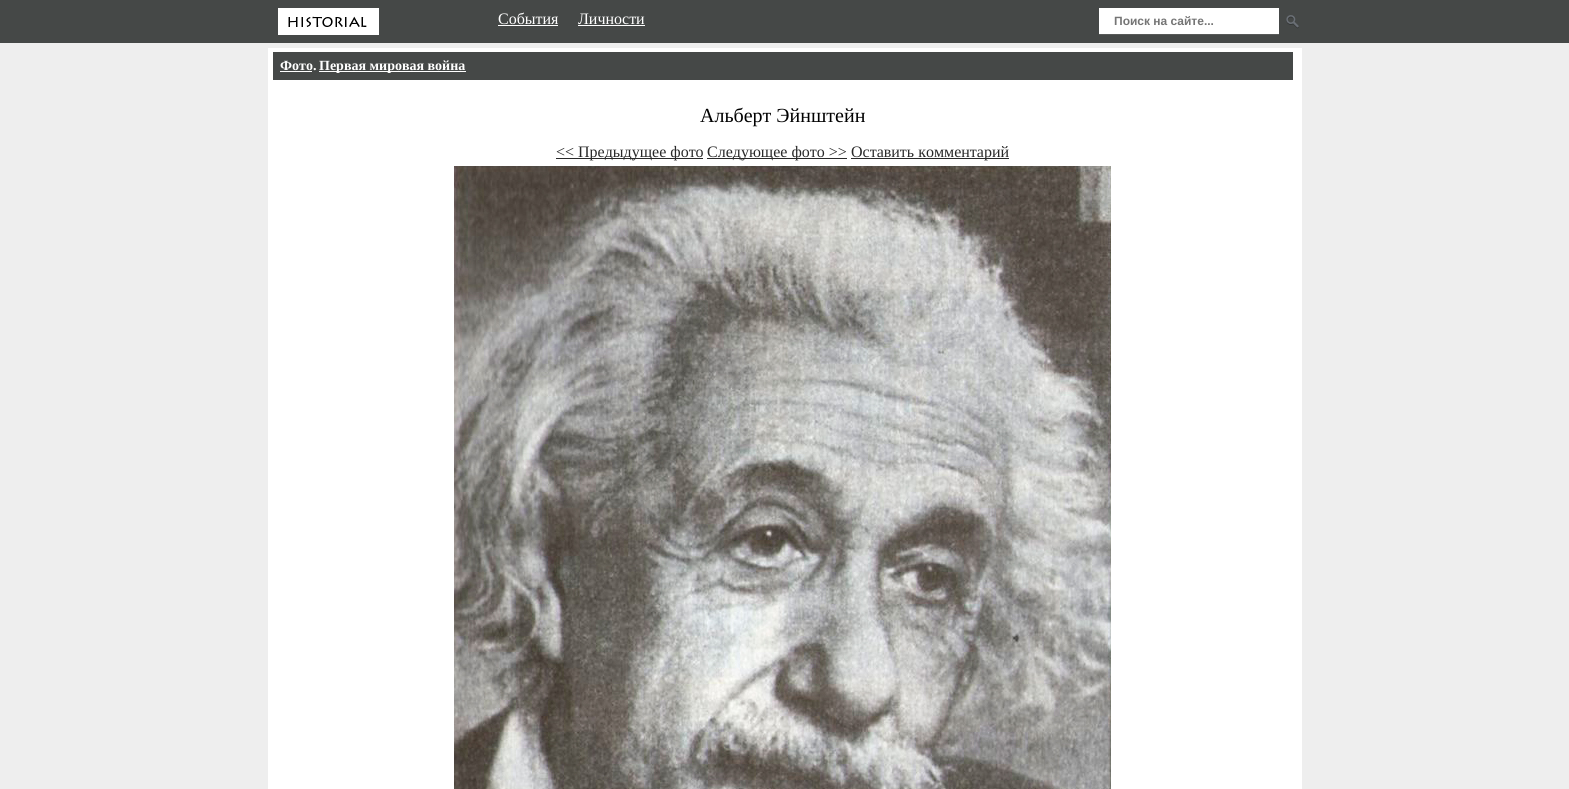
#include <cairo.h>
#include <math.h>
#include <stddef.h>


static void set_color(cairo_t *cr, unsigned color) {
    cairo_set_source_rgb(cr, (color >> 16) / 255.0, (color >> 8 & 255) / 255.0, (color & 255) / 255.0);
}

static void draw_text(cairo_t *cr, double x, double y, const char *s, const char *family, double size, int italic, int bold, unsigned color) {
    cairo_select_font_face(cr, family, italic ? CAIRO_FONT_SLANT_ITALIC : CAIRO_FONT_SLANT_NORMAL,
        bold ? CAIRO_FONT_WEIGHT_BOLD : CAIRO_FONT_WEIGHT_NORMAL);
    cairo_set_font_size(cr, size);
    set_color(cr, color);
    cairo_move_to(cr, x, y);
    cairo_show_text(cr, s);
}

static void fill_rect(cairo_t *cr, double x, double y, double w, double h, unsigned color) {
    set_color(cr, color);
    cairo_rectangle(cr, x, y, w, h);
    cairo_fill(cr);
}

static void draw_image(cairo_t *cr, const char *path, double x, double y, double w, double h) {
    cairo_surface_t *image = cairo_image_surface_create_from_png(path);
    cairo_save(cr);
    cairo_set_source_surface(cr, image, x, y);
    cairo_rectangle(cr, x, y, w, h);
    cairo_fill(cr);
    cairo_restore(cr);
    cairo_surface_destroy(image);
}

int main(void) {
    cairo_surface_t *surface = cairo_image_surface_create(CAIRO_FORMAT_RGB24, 1569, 789);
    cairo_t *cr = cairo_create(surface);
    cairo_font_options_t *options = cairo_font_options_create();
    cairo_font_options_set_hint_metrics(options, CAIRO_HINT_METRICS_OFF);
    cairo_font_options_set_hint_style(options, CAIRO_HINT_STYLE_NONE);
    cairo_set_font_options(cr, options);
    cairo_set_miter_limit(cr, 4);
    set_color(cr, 0xEEEEEE);
    cairo_paint(cr);
    fill_rect(cr, 0, 0, 1569, 43, 0x454847);
    draw_image(cr, "assets/img1.png", 278, 8, 101, 27);
    draw_text(cr, 498, 24, "События", "Liberation Serif", 16, 0, 0, 0xFFFFFF);
    fill_rect(cr, 498, 25, 60, 1, 0xFFFFFF);
    draw_text(cr, 578, 24, "Личности", "Liberation Serif", 16, 0, 0, 0xFFFFFF);
    fill_rect(cr, 578, 25, 67, 1, 0xFFFFFF);
    fill_rect(cr, 1099, 34, 180, 1, 0x585A59);
    fill_rect(cr, 1099, 8, 180, 26, 0xFFFFFF);
    draw_text(cr, 1114, 25, "Поиск на сайте...", "Liberation Sans", 12, 0, 1, 0x757575);
    draw_image(cr, "assets/img2.png", 1286, 15, 13, 14);
    fill_rect(cr, 268, 48, 1034, 741, 0xFFFFFF);
    fill_rect(cr, 273, 52, 1020, 28, 0x454847);
    draw_text(cr, 280, 70, "Фото.", "Liberation Serif", 14, 0, 1, 0xFFFFFF);
    fill_rect(cr, 280, 71, 32, 1, 0xFFFFFF);
    fill_rect(cr, 319, 71, 147, 1, 0xFFFFFF);
    draw_text(cr, 319, 70, "Первая мировая война", "Liberation Serif", 14, 0, 1, 0xFFFFFF);
    draw_text(cr, 700, 122, "Альберт Эйнштейн", "Liberation Serif", 20, 0, 0, 0x000000);
    fill_rect(cr, 556, 158, 147, 1, 0x292929);
    draw_text(cr, 556, 157, "<< Предыдущее фото", "Liberation Serif", 16, 0, 0, 0x292929);
    fill_rect(cr, 707, 158, 140, 1, 0x292929);
    draw_text(cr, 707, 157, "Следующее фото >>", "Liberation Serif", 16, 0, 0, 0x292929);
    fill_rect(cr, 851, 158, 158, 1, 0x292929);
    draw_text(cr, 851, 157, "Оставить комментарий", "Liberation Serif", 16, 0, 0, 0x292929);
    draw_image(cr, "assets/img3.png", 454, 166, 657, 623);
    cairo_surface_write_to_png(surface, "output.png");
    cairo_font_options_destroy(options);
    cairo_destroy(cr);
    cairo_surface_destroy(surface);
    return 0;
}
